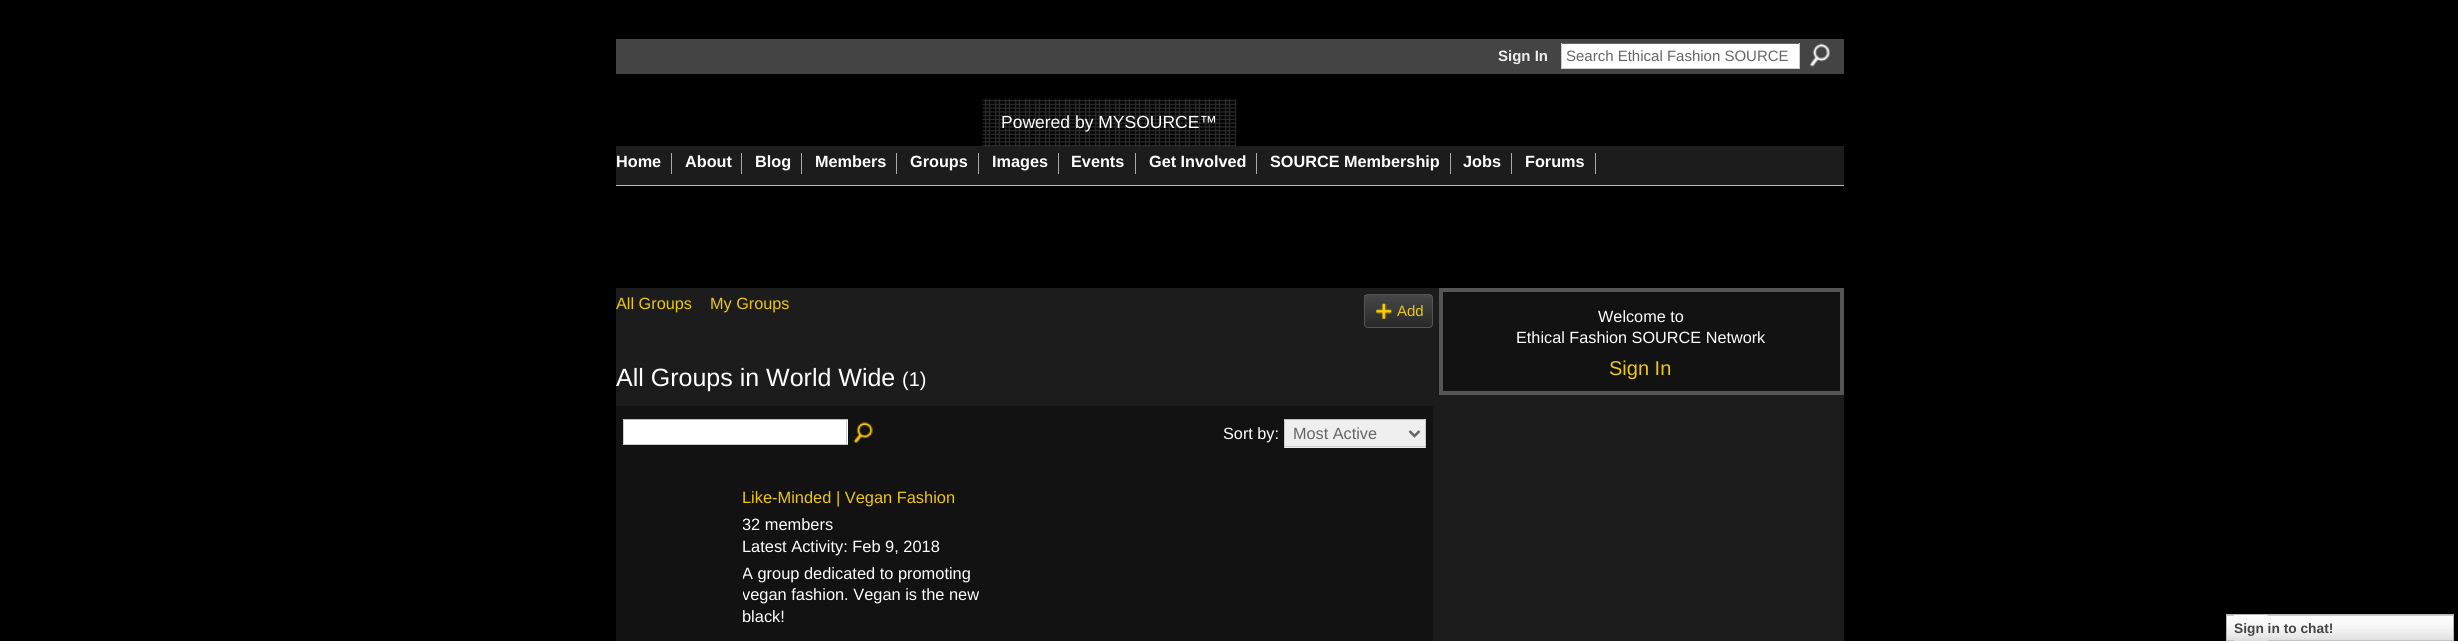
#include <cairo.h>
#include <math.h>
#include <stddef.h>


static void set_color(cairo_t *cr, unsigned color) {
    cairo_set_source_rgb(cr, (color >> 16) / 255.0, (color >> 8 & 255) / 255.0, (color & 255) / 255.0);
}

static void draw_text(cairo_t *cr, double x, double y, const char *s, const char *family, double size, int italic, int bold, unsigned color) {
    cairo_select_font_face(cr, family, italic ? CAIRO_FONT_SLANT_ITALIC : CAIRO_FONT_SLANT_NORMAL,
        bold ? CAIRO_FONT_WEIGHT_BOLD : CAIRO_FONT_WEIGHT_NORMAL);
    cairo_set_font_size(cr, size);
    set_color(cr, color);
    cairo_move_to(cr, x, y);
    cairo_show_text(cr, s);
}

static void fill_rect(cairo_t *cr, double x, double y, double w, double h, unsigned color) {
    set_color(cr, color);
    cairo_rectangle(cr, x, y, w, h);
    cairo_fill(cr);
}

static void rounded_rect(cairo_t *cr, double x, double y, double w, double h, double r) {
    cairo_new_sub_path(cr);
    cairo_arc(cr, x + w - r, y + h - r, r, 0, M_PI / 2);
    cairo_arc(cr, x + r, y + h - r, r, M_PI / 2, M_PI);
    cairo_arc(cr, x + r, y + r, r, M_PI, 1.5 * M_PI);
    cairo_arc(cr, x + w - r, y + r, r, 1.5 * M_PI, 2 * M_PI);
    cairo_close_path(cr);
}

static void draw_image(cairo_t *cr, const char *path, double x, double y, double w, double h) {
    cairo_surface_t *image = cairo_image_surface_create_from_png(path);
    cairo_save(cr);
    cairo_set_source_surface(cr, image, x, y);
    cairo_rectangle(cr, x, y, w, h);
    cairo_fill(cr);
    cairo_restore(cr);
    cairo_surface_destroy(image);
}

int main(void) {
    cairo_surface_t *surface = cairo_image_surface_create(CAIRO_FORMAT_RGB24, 2458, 641);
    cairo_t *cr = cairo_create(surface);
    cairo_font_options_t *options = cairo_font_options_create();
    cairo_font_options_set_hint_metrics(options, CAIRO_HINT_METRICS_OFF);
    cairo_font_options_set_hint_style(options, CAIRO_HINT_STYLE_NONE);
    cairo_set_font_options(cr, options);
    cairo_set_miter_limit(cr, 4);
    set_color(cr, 0x000000);
    cairo_paint(cr);
    fill_rect(cr, 616, 39, 1228, 35, 0x444444);
    draw_text(cr, 1498, 61, "Sign In", "Liberation Sans", 15, 0, 1, 0xEEEEEE);
    fill_rect(cr, 1562, 44, 237, 24, 0xFFFFFF);
    fill_rect(cr, 1561, 43, 239, 1, 0x666666);
    fill_rect(cr, 1799, 43, 1, 26, 0xCCCCCC);
    fill_rect(cr, 1561, 68, 239, 1, 0xCCCCCC);
    fill_rect(cr, 1561, 43, 1, 26, 0xCCCCCC);
    draw_text(cr, 1566, 61, "Search Ethical Fashion SOURCE", "Liberation Sans", 15, 0, 0, 0x666666);
    draw_image(cr, "assets/img1.png", 1810, 43, 20, 24);
    fill_rect(cr, 616, 146, 1228, 39, 0x1C1C1C);
    draw_image(cr, "assets/img2.png", 982, 98, 255, 49);
    draw_text(cr, 1001, 128, "Powered by MYSOURCE™", "Liberation Sans", 17.5, 0, 0, 0xFFFFFF);
    fill_rect(cr, 616, 185, 1228, 1, 0xEDC811);
    fill_rect(cr, 671, 153, 1, 21, 0xAAAAAA);
    draw_text(cr, 616, 167, "Home", "Liberation Sans", 16.25, 0, 1, 0xFFFFFF);
    fill_rect(cr, 741, 153, 1, 21, 0xAAAAAA);
    draw_text(cr, 685, 167, "About", "Liberation Sans", 16.25, 0, 1, 0xFFFFFF);
    fill_rect(cr, 801, 153, 1, 21, 0xAAAAAA);
    draw_text(cr, 755, 167, "Blog", "Liberation Sans", 16.25, 0, 1, 0xFFFFFF);
    fill_rect(cr, 896, 153, 1, 21, 0xAAAAAA);
    draw_text(cr, 815, 167, "Members", "Liberation Sans", 16.25, 0, 1, 0xFFFFFF);
    fill_rect(cr, 978, 153, 1, 21, 0xAAAAAA);
    draw_text(cr, 910, 167, "Groups", "Liberation Sans", 16.25, 0, 1, 0xFFFFFF);
    fill_rect(cr, 1058, 153, 1, 21, 0xAAAAAA);
    draw_text(cr, 992, 167, "Images", "Liberation Sans", 16.25, 0, 1, 0xFFFFFF);
    fill_rect(cr, 1135, 153, 1, 21, 0xAAAAAA);
    draw_text(cr, 1071, 167, "Events", "Liberation Sans", 16.25, 0, 1, 0xFFFFFF);
    fill_rect(cr, 1256, 153, 1, 21, 0xAAAAAA);
    draw_text(cr, 1149, 167, "Get Involved", "Liberation Sans", 16.25, 0, 1, 0xFFFFFF);
    fill_rect(cr, 1450, 153, 1, 21, 0xAAAAAA);
    draw_text(cr, 1270, 167, "SOURCE Membership", "Liberation Sans", 16.25, 0, 1, 0xFFFFFF);
    fill_rect(cr, 1511, 153, 1, 21, 0xAAAAAA);
    draw_text(cr, 1463, 167, "Jobs", "Liberation Sans", 16.25, 0, 1, 0xFFFFFF);
    fill_rect(cr, 1595, 153, 1, 21, 0xAAAAAA);
    draw_text(cr, 1525, 167, "Forums", "Liberation Sans", 16.25, 0, 1, 0xFFFFFF);
    fill_rect(cr, 616, 288, 1228, 353, 0x1C1C1C);
    draw_text(cr, 616, 309, "All Groups", "Liberation Sans", 16.25, 0, 0, 0xEDC811);
    draw_text(cr, 710, 309, "My Groups", "Liberation Sans", 16.25, 0, 0, 0xEDC811);
    draw_image(cr, "assets/img3.png", 1364, 295, 69, 32);
    rounded_rect(cr, 1364.5, 294.5, 68, 33, 3.5);
    set_color(cr, 0x555555);
    cairo_set_line_width(cr, 1);
    cairo_stroke(cr);
    draw_image(cr, "assets/img4.png", 1376, 303, 16, 16);
    draw_text(cr, 1397, 316, "Add", "Liberation Sans", 15, 0, 0, 0xEDC811);
    draw_text(cr, 616, 386, "All Groups in World Wide", "Liberation Sans", 25, 0, 0, 0xFFFFFF);
    draw_text(cr, 902, 386, "(1)", "Liberation Sans", 20, 0, 0, 0xFFFFFF);
    fill_rect(cr, 616, 406, 817, 235, 0x121212);
    fill_rect(cr, 624, 420, 224, 24, 0xFFFFFF);
    fill_rect(cr, 623, 419, 225, 1, 0xBBBBBB);
    fill_rect(cr, 846, 419, 1, 26, 0xCCCCCC);
    fill_rect(cr, 623, 444, 225, 1, 0xCCCCCC);
    fill_rect(cr, 623, 419, 1, 26, 0xCCCCCC);
    draw_image(cr, "assets/img5.png", 853, 422, 20, 21);
    draw_text(cr, 1223, 439, "Sort by:", "Liberation Sans", 16.25, 0, 0, 0xFFFFFF);
    fill_rect(cr, 1285, 420, 140, 28, 0xEFEFEF);
    fill_rect(cr, 1284, 419, 142, 1, 0xBBBBBB);
    fill_rect(cr, 1425, 419, 1, 29, 0xCCCCCC);
    fill_rect(cr, 1284, 446, 142, 1, 0xCCCCCC);
    fill_rect(cr, 1284, 419, 1, 29, 0xCCCCCC);
    cairo_new_path(cr);
    cairo_move_to(cr, 1409.5, 431);
    cairo_line_to(cr, 1414.5, 436);
    cairo_line_to(cr, 1419.5, 431);
    set_color(cr, 0x666666);
    cairo_set_line_width(cr, 2.5);
    cairo_stroke(cr);
    draw_text(cr, 1293, 439, "Most Active", "Liberation Sans", 16.25, 0, 0, 0x666666);
    draw_text(cr, 742, 503, "Like-Minded | Vegan Fashion", "Liberation Sans", 16.4, 0, 0, 0xEDC811);
    cairo_save(cr);
    cairo_rectangle(cr, 743, 514, 271, 42);
    cairo_clip(cr);
    draw_text(cr, 742, 530, "32 members", "Liberation Sans", 16.4, 0, 0, 0xFFFFFF);
    cairo_restore(cr);
    draw_text(cr, 742, 552, "Latest Activity: Feb 9, 2018", "Liberation Sans", 16.4, 0, 0, 0xFFFFFF);
    cairo_save(cr);
    cairo_rectangle(cr, 743, 563, 271, 63);
    cairo_clip(cr);
    draw_text(cr, 742, 579, "A group dedicated to promoting", "Liberation Sans", 16.4, 0, 0, 0xFFFFFF);
    draw_text(cr, 742, 600, "vegan fashion. Vegan is the new", "Liberation Sans", 16.4, 0, 0, 0xFFFFFF);
    cairo_restore(cr);
    draw_text(cr, 742, 622, "black!", "Liberation Sans", 16.4, 0, 0, 0xFFFFFF);
    set_color(cr, 0x121212);
    cairo_rectangle(cr, 1441, 290, 401, 103);
    cairo_fill_preserve(cr);
    set_color(cr, 0x555555);
    cairo_set_line_width(cr, 4);
    cairo_stroke(cr);
    draw_text(cr, 1598, 322, "Welcome to", "Liberation Sans", 16.25, 0, 0, 0xFFFFFF);
    draw_text(cr, 1516, 343, "Ethical Fashion SOURCE Network", "Liberation Sans", 16.25, 0, 0, 0xFFFFFF);
    draw_text(cr, 1609, 375, "Sign In", "Liberation Sans", 20, 0, 0, 0xEDC811);
    draw_image(cr, "assets/img6.png", 2227, 615, 226, 26);
    cairo_rectangle(cr, 2226.5, 614.5, 227, 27);
    set_color(cr, 0xB7B7B7);
    cairo_set_line_width(cr, 1);
    cairo_stroke(cr);
    draw_image(cr, "assets/img7.png", 2234, 615, 34, 26);
    draw_text(cr, 2234, 633, "Sign in to chat!", "Liberation Sans", 13.75, 0, 1, 0x454545);
    cairo_surface_write_to_png(surface, "output.png");
    cairo_font_options_destroy(options);
    cairo_destroy(cr);
    cairo_surface_destroy(surface);
    return 0;
}
